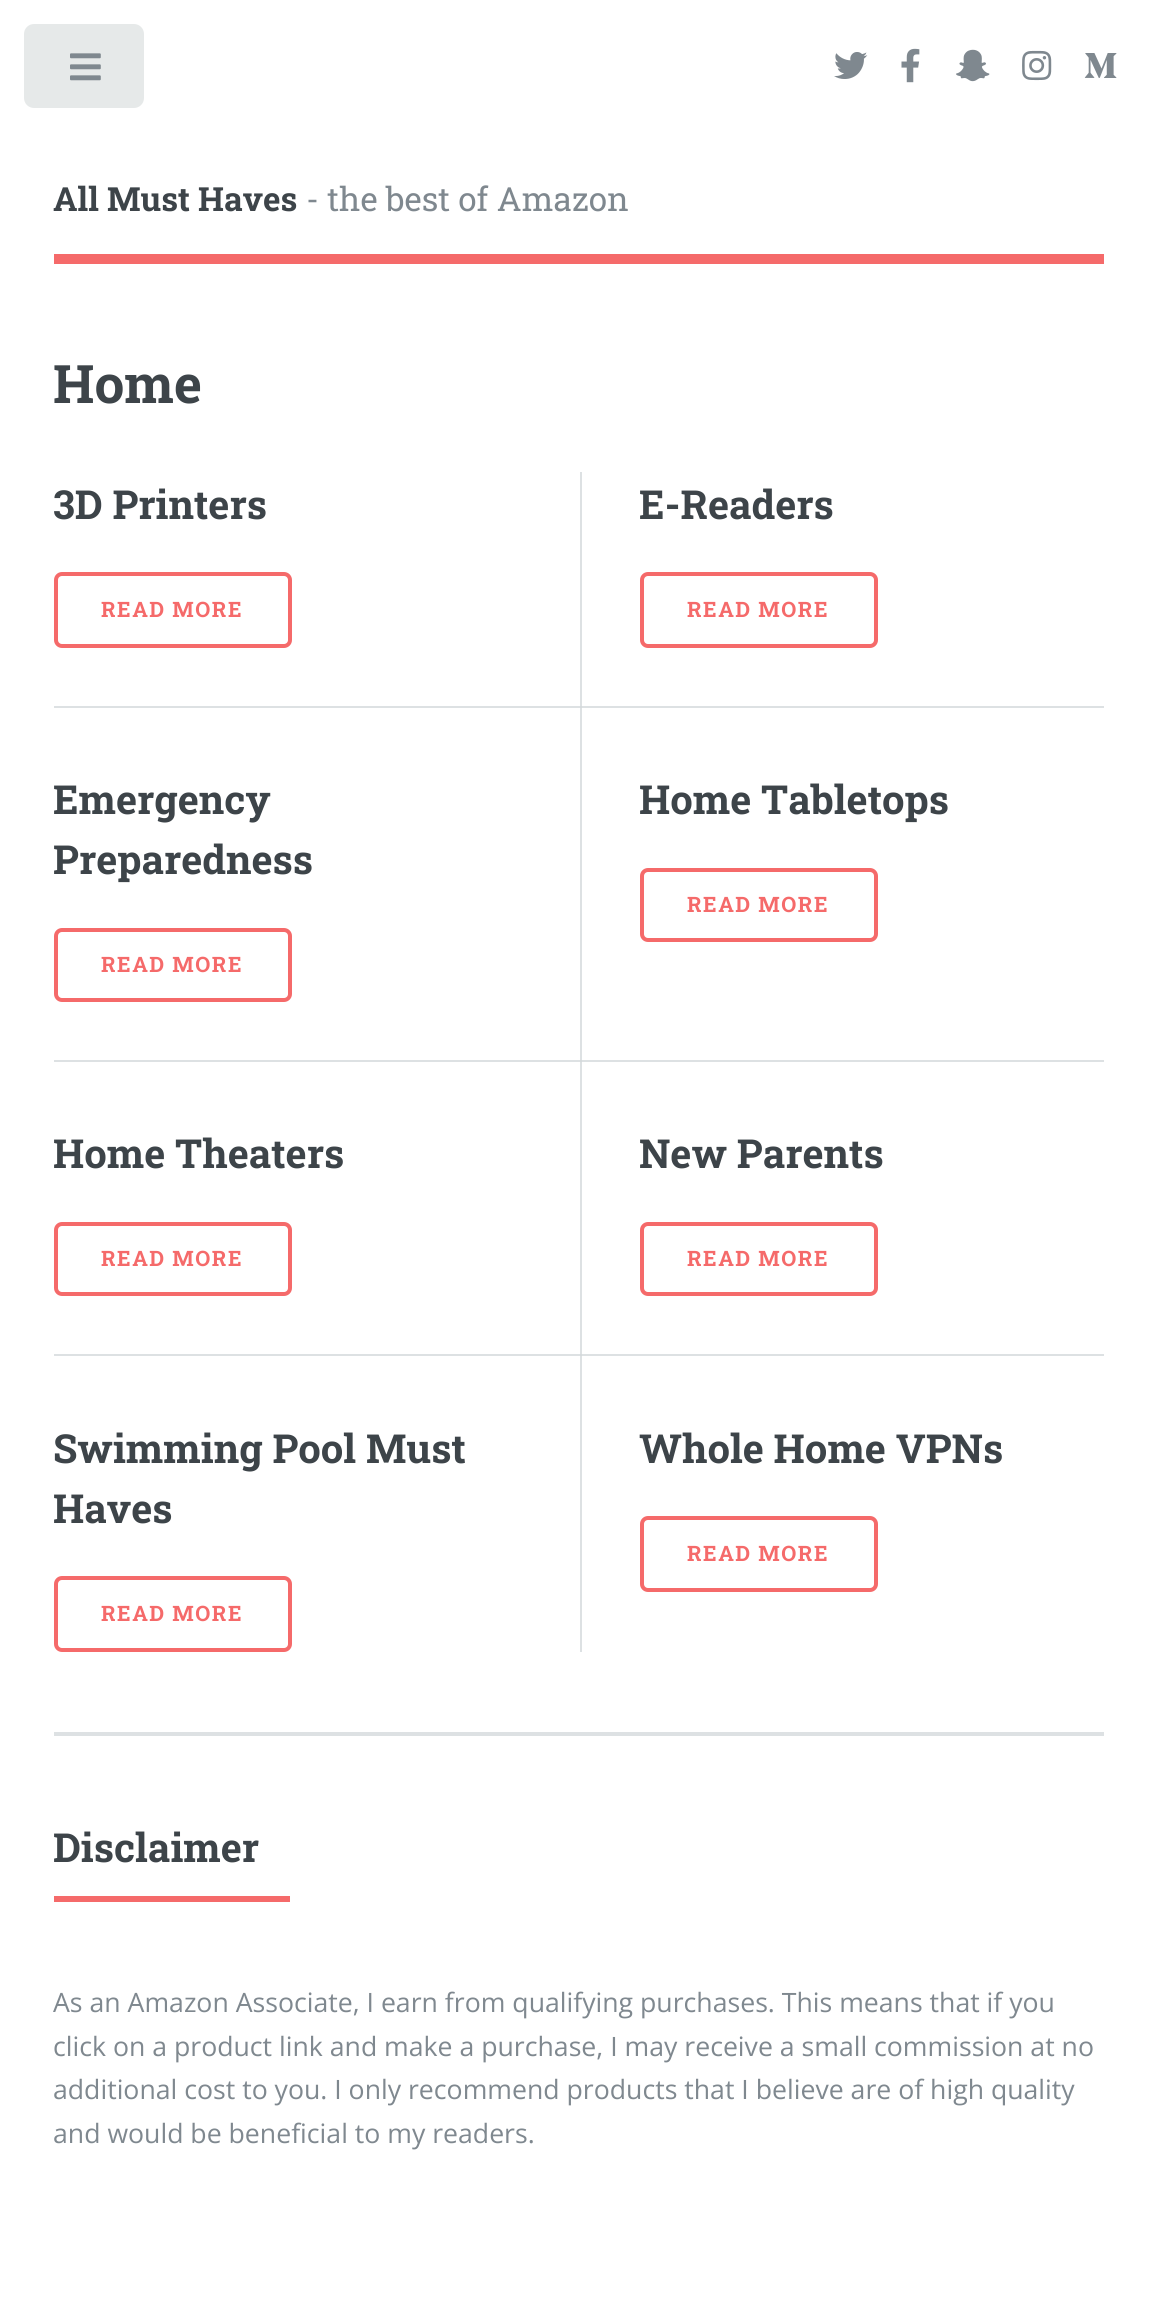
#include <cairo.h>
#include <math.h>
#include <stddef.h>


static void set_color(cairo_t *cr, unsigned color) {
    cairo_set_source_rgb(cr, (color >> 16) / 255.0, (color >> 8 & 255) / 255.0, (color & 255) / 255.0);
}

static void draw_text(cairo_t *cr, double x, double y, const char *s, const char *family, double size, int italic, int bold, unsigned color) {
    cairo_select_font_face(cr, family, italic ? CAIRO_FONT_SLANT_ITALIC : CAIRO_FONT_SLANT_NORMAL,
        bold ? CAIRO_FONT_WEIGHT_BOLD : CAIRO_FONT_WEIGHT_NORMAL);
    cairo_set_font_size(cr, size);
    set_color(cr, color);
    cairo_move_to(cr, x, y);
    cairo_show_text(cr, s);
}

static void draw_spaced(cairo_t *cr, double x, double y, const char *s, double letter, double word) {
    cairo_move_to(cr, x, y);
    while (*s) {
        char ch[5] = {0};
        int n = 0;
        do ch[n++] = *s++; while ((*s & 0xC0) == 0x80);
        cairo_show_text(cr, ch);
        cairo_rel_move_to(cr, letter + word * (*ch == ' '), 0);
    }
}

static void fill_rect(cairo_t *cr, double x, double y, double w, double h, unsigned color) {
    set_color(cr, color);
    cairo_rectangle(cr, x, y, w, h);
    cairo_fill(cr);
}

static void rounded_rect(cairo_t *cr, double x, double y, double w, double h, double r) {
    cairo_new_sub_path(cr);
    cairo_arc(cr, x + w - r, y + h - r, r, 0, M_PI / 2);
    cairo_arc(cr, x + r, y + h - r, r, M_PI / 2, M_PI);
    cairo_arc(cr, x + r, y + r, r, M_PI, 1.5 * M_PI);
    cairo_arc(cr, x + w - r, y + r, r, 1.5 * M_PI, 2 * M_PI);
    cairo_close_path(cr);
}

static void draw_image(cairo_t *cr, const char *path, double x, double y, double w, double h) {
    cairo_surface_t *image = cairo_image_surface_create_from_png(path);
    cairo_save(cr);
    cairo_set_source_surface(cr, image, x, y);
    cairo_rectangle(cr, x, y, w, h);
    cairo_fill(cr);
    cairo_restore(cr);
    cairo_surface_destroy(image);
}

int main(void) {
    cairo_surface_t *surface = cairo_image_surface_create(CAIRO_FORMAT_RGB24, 1158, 2298);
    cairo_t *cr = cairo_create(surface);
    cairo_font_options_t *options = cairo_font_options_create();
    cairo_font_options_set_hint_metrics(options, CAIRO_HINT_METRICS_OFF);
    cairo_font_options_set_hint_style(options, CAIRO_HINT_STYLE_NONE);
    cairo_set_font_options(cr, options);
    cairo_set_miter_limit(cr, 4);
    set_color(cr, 0xFFFFFF);
    cairo_paint(cr);
    fill_rect(cr, 54, 1354, 1050, 2, 0xDDE1E3);
    fill_rect(cr, 54, 1060, 1050, 2, 0xDDE1E3);
    fill_rect(cr, 54, 706, 1050, 2, 0xDDE1E3);
    set_color(cr, 0xE6E9E9);
    rounded_rect(cr, 24, 24, 120, 84, 10);
    cairo_fill(cr);
    draw_image(cr, "assets/img1.png", 70, 53, 31, 28);
    fill_rect(cr, 54, 254, 1050, 10, 0xF56A6A);
    draw_image(cr, "assets/img2.png", 834, 52, 34, 27);
    draw_image(cr, "assets/img3.png", 901, 48, 19, 35);
    draw_image(cr, "assets/img4.png", 956, 49, 34, 33);
    draw_image(cr, "assets/img5.png", 1022, 50, 30, 31);
    draw_image(cr, "assets/img6.png", 1084, 53, 33, 25);
    draw_text(cr, 53, 211, "All Must Haves", "Roboto Slab", 33.25, 0, 1, 0x3D4449);
    draw_text(cr, 306, 211, "- the best of Amazon", "Roboto Slab", 33.25, 0, 0, 0x7F888F);
    draw_text(cr, 53, 403, "Home", "Roboto Slab", 53, 0, 1, 0x3D4449);
    draw_text(cr, 53, 519, "3D Printers", "Roboto Slab", 40, 0, 1, 0x3D4449);
    rounded_rect(cr, 56, 574, 234, 72, 6);
    set_color(cr, 0xF56A6A);
    cairo_set_line_width(cr, 4);
    cairo_stroke(cr);
    cairo_set_font_size(cr, 21.25);
    draw_spaced(cr, 101, 617, "READ MORE", 1.5, 0);
    fill_rect(cr, 580, 472, 2, 1180, 0xDDE1E3);
    fill_rect(cr, 580, 706, 2, 2, 0xD5DADC);
    draw_text(cr, 639, 519, "E-Readers", "Roboto Slab", 40, 0, 1, 0x3D4449);
    rounded_rect(cr, 642, 574, 234, 72, 6);
    set_color(cr, 0xF56A6A);
    cairo_stroke(cr);
    cairo_set_font_size(cr, 21.25);
    draw_spaced(cr, 687, 617, "READ MORE", 1.5, 0);
    draw_text(cr, 53, 814, "Emergency", "Roboto Slab", 40, 0, 1, 0x3D4449);
    draw_text(cr, 53, 874, "Preparedness", "Roboto Slab", 40, 0, 1, 0x3D4449);
    rounded_rect(cr, 56, 930, 234, 70, 6);
    set_color(cr, 0xF56A6A);
    cairo_stroke(cr);
    cairo_set_font_size(cr, 21.25);
    draw_spaced(cr, 101, 972, "READ MORE", 1.5, 0);
    draw_text(cr, 639, 814, "Home Tabletops", "Roboto Slab", 40, 0, 1, 0x3D4449);
    rounded_rect(cr, 642, 870, 234, 70, 6);
    set_color(cr, 0xF56A6A);
    cairo_stroke(cr);
    cairo_set_font_size(cr, 21.25);
    draw_spaced(cr, 687, 912, "READ MORE", 1.5, 0);
    fill_rect(cr, 580, 1060, 2, 2, 0xD5DADC);
    draw_text(cr, 53, 1168, "Home Theaters", "Roboto Slab", 40, 0, 1, 0x3D4449);
    rounded_rect(cr, 56, 1224, 234, 70, 6);
    set_color(cr, 0xF56A6A);
    cairo_stroke(cr);
    cairo_set_font_size(cr, 21.25);
    draw_spaced(cr, 101, 1266, "READ MORE", 1.5, 0);
    draw_text(cr, 639, 1168, "New Parents", "Roboto Slab", 40, 0, 1, 0x3D4449);
    rounded_rect(cr, 642, 1224, 234, 70, 6);
    set_color(cr, 0xF56A6A);
    cairo_stroke(cr);
    cairo_set_font_size(cr, 21.25);
    draw_spaced(cr, 687, 1266, "READ MORE", 1.5, 0);
    fill_rect(cr, 580, 1354, 2, 2, 0xD5DADC);
    draw_text(cr, 53, 1463, "Swimming Pool Must", "Roboto Slab", 40, 0, 1, 0x3D4449);
    draw_text(cr, 53, 1523, "Haves", "Roboto Slab", 40, 0, 1, 0x3D4449);
    rounded_rect(cr, 56, 1578, 234, 72, 6);
    set_color(cr, 0xF56A6A);
    cairo_stroke(cr);
    cairo_set_font_size(cr, 21.25);
    draw_spaced(cr, 101, 1621, "READ MORE", 1.5, 0);
    draw_text(cr, 639, 1463, "Whole Home VPNs", "Roboto Slab", 40, 0, 1, 0x3D4449);
    rounded_rect(cr, 642, 1518, 234, 72, 6);
    set_color(cr, 0xF56A6A);
    cairo_stroke(cr);
    cairo_set_font_size(cr, 21.25);
    draw_spaced(cr, 687, 1561, "READ MORE", 1.5, 0);
    fill_rect(cr, 54, 1732, 1050, 4, 0xDDE1E3);
    fill_rect(cr, 54, 1896, 236, 6, 0xF56A6A);
    draw_text(cr, 53, 1862, "Disclaimer", "Roboto Slab", 40, 0, 1, 0x3D4449);
    draw_text(cr, 53, 2012, "As an Amazon Associate, I earn from qualifying purchases. This means that if you", "Open Sans", 26.65, 0, 0, 0x7F888F);
    draw_text(cr, 53, 2056, "click on a product link and make a purchase, I may receive a small commission at no", "Open Sans", 26.65, 0, 0, 0x7F888F);
    draw_text(cr, 53, 2099, "additional cost to you. I only recommend products that I believe are of high quality", "Open Sans", 26.65, 0, 0, 0x7F888F);
    draw_text(cr, 53, 2143, "and would be beneficial to my readers.", "Open Sans", 26.65, 0, 0, 0x7F888F);
    cairo_surface_write_to_png(surface, "output.png");
    cairo_font_options_destroy(options);
    cairo_destroy(cr);
    cairo_surface_destroy(surface);
    return 0;
}
